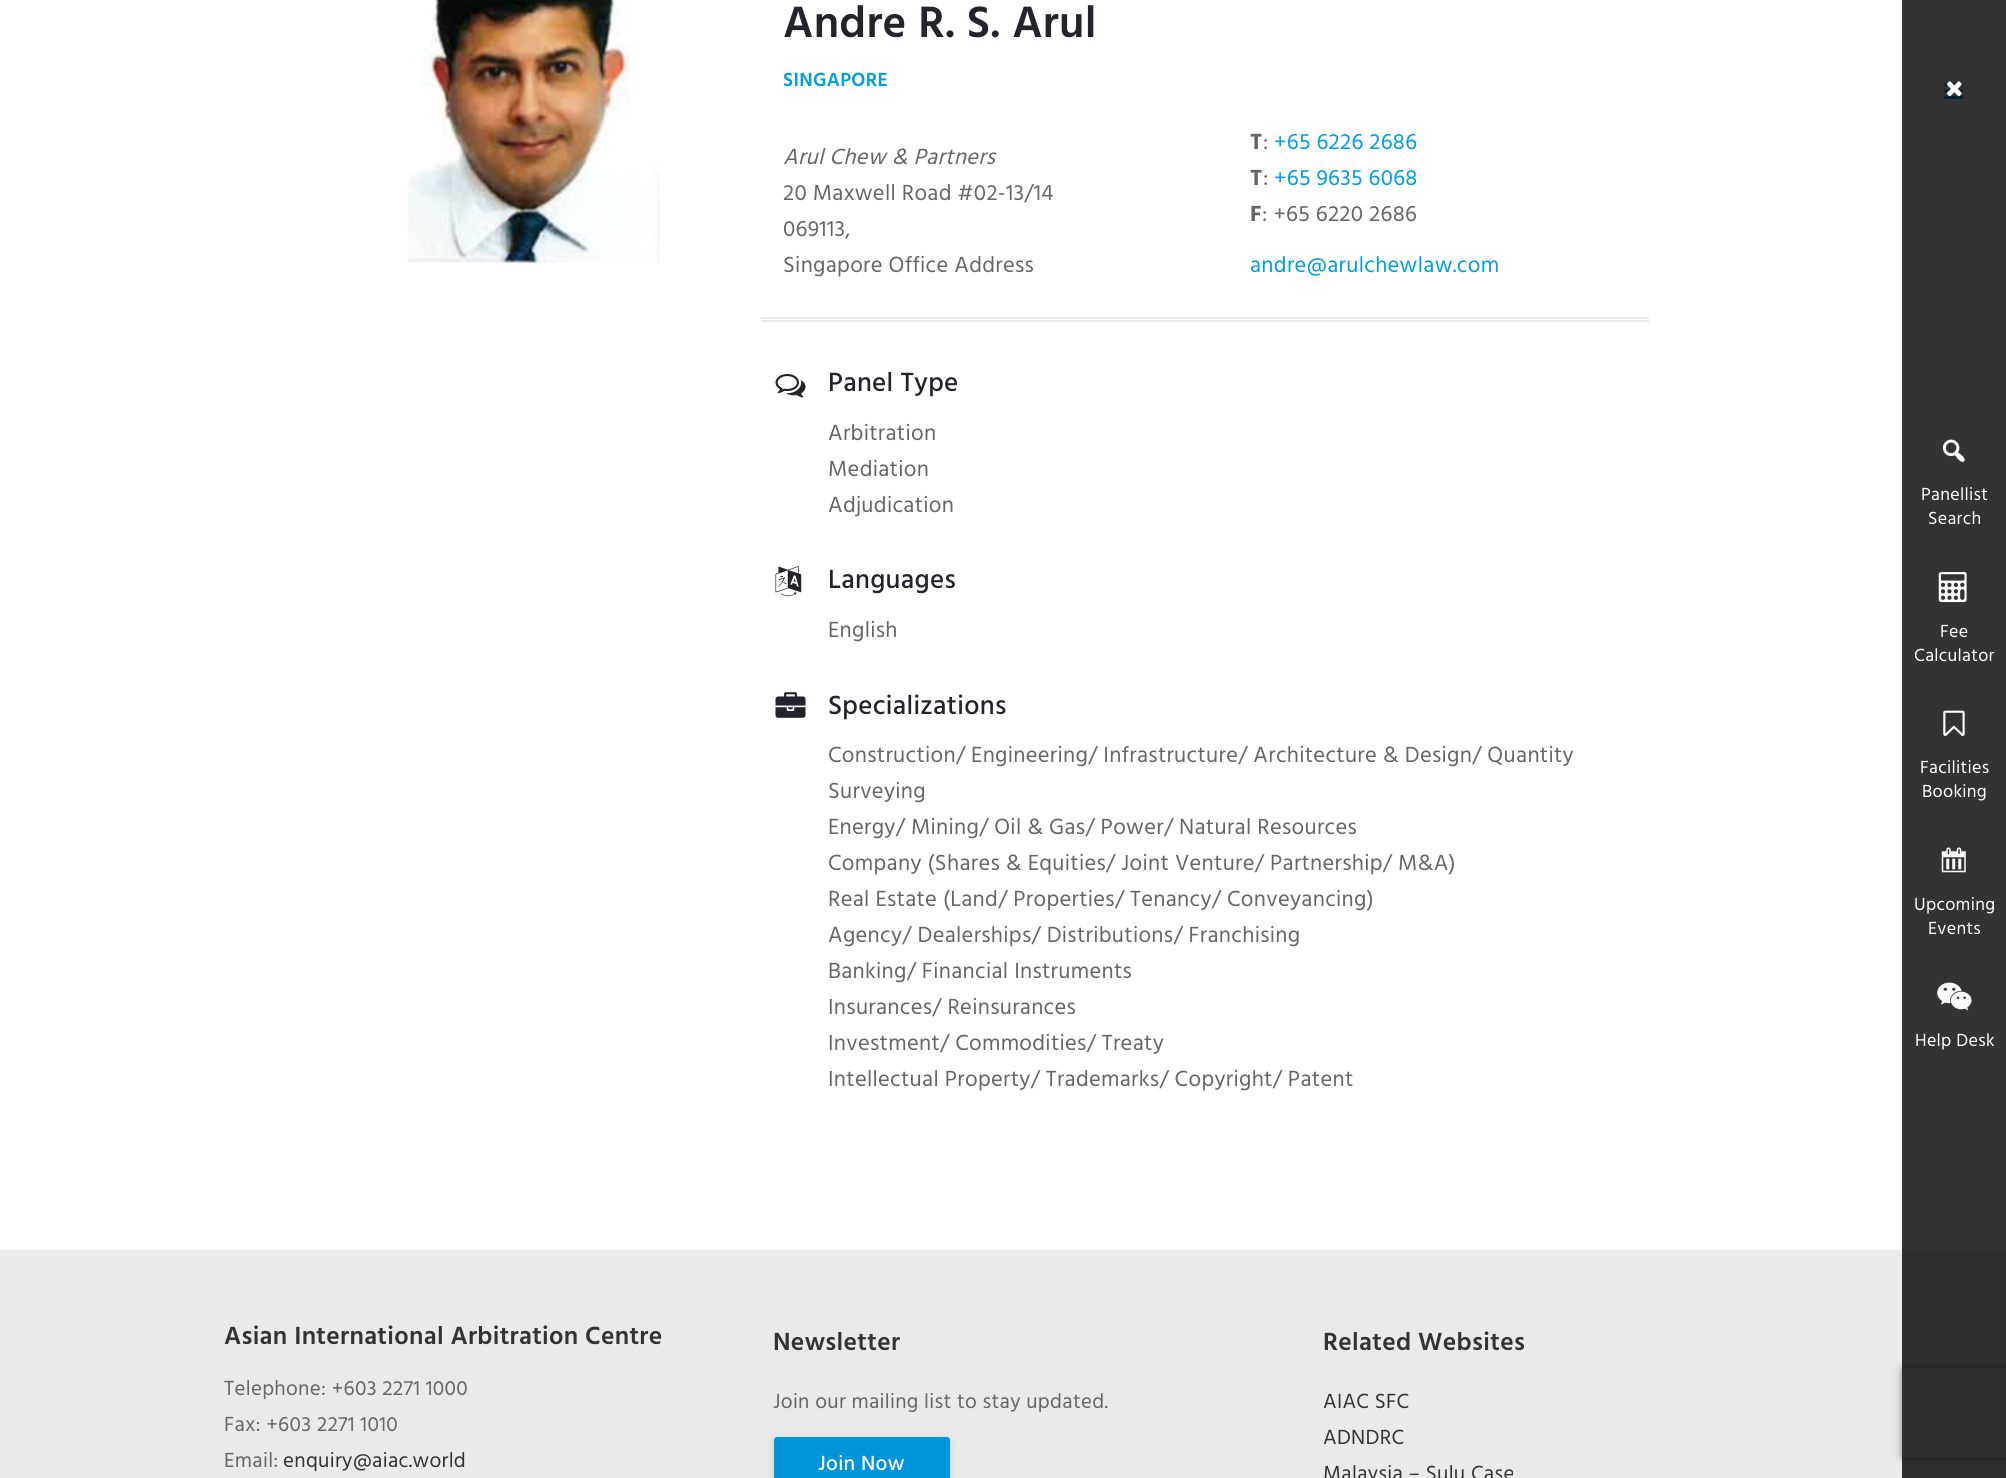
#include <cairo.h>
#include <math.h>
#include <stddef.h>


static void set_color(cairo_t *cr, unsigned color) {
    cairo_set_source_rgb(cr, (color >> 16) / 255.0, (color >> 8 & 255) / 255.0, (color & 255) / 255.0);
}

static void draw_spaced(cairo_t *cr, double x, double y, const char *s, double letter, double word) {
    cairo_move_to(cr, x, y);
    while (*s) {
        char ch[5] = {0};
        int n = 0;
        do ch[n++] = *s++; while ((*s & 0xC0) == 0x80);
        cairo_show_text(cr, ch);
        cairo_rel_move_to(cr, letter + word * (*ch == ' '), 0);
    }
}

static void fill_rect(cairo_t *cr, double x, double y, double w, double h, unsigned color) {
    set_color(cr, color);
    cairo_rectangle(cr, x, y, w, h);
    cairo_fill(cr);
}

static void rounded_rect(cairo_t *cr, double x, double y, double w, double h, double r) {
    cairo_new_sub_path(cr);
    cairo_arc(cr, x + w - r, y + h - r, r, 0, M_PI / 2);
    cairo_arc(cr, x + r, y + h - r, r, M_PI / 2, M_PI);
    cairo_arc(cr, x + r, y + r, r, M_PI, 1.5 * M_PI);
    cairo_arc(cr, x + w - r, y + r, r, 1.5 * M_PI, 2 * M_PI);
    cairo_close_path(cr);
}

static void draw_shadow(cairo_t *cr, double x, double y, double w, double h, double r, double blur, double alpha) {
    cairo_push_group_with_content(cr, CAIRO_CONTENT_ALPHA);
    cairo_set_operator(cr, CAIRO_OPERATOR_SOURCE);
    for (int i = 15; i >= -15 && fmin(w, h) + blur * i / 3 > 0; i -= 2) {
        double e = blur * i / 6;
        cairo_set_source_rgba(cr, 0, 0, 0, alpha * erfc((i - 1) / 8.5) / 2);
        rounded_rect(cr, x - e, y - e, w + 2 * e, h + 2 * e, fmax(0, fmin(r + e + blur * .6, fmin(w, h) / 2 + e)));
        cairo_fill(cr);
    }
    cairo_pattern_t *soft = cairo_pop_group(cr);
    cairo_mask(cr, soft);
    cairo_pattern_destroy(soft);
}

static void draw_image(cairo_t *cr, const char *path, double x, double y, double w, double h) {
    cairo_surface_t *image = cairo_image_surface_create_from_png(path);
    cairo_save(cr);
    cairo_set_source_surface(cr, image, x, y);
    cairo_rectangle(cr, x, y, w, h);
    cairo_fill(cr);
    cairo_restore(cr);
    cairo_surface_destroy(image);
}

int main(void) {
    cairo_surface_t *surface = cairo_image_surface_create(CAIRO_FORMAT_RGB24, 2006, 1478);
    cairo_t *cr = cairo_create(surface);
    cairo_font_options_t *options = cairo_font_options_create();
    cairo_font_options_set_hint_metrics(options, CAIRO_HINT_METRICS_OFF);
    cairo_font_options_set_hint_style(options, CAIRO_HINT_STYLE_NONE);
    cairo_set_font_options(cr, options);
    cairo_set_miter_limit(cr, 4);
    set_color(cr, 0xFFFFFF);
    cairo_paint(cr);
    draw_image(cr, "assets/img1.png", 407, 0, 253, 263);
    cairo_select_font_face(cr, "Hind SemiBold", CAIRO_FONT_SLANT_NORMAL, CAIRO_FONT_WEIGHT_NORMAL);
    cairo_set_font_size(cr, 45);
    set_color(cr, 0x23232B);
    draw_spaced(cr, 783, 37, "Andre R. S. Arul", 0.3, 0);
    cairo_set_font_size(cr, 19.5);
    set_color(cr, 0x009FE2);
    draw_spaced(cr, 783, 86, "SINGAPORE", 0.3, 0);
    cairo_select_font_face(cr, "Hind", CAIRO_FONT_SLANT_ITALIC, CAIRO_FONT_WEIGHT_NORMAL);
    cairo_set_font_size(cr, 22.5);
    set_color(cr, 0x666666);
    draw_spaced(cr, 783, 164, "Arul Chew & Partners", 0.3, 0);
    cairo_select_font_face(cr, "Hind", CAIRO_FONT_SLANT_NORMAL, CAIRO_FONT_WEIGHT_NORMAL);
    draw_spaced(cr, 783, 200, "20 Maxwell Road #02-13/14", 0.3, 0);
    draw_spaced(cr, 783, 236, "069113,", 0.3, 0);
    draw_spaced(cr, 783, 272, "Singapore Office Address", 0.3, 0);
    cairo_select_font_face(cr, "Hind", CAIRO_FONT_SLANT_NORMAL, CAIRO_FONT_WEIGHT_BOLD);
    draw_spaced(cr, 1250, 149, "T", 0.3, 0);
    cairo_select_font_face(cr, "Hind", CAIRO_FONT_SLANT_NORMAL, CAIRO_FONT_WEIGHT_NORMAL);
    draw_spaced(cr, 1263, 149, ":", 0.3, 0);
    set_color(cr, 0x009FE2);
    draw_spaced(cr, 1274, 149, "+65 6226 2686", 0.3, 0);
    cairo_select_font_face(cr, "Hind", CAIRO_FONT_SLANT_NORMAL, CAIRO_FONT_WEIGHT_BOLD);
    set_color(cr, 0x666666);
    draw_spaced(cr, 1250, 185, "T", 0.3, 0);
    cairo_select_font_face(cr, "Hind", CAIRO_FONT_SLANT_NORMAL, CAIRO_FONT_WEIGHT_NORMAL);
    draw_spaced(cr, 1263, 185, ":", 0.3, 0);
    set_color(cr, 0x009FE2);
    draw_spaced(cr, 1274, 185, "+65 9635 6068", 0.3, 0);
    cairo_select_font_face(cr, "Hind", CAIRO_FONT_SLANT_NORMAL, CAIRO_FONT_WEIGHT_BOLD);
    set_color(cr, 0x666666);
    draw_spaced(cr, 1250, 221, "F", 0.3, 0);
    cairo_select_font_face(cr, "Hind", CAIRO_FONT_SLANT_NORMAL, CAIRO_FONT_WEIGHT_NORMAL);
    draw_spaced(cr, 1262, 221, ": +65 6220 2686", 0.3, 0);
    set_color(cr, 0x009FE2);
    draw_spaced(cr, 1250, 272, "andre@arulchewlaw.com", 0.3, 0);
    fill_rect(cr, 761, 317, 888, 2, 0xEBEBEB);
    fill_rect(cr, 761, 320, 888, 2, 0xEBEBEB);
    draw_image(cr, "assets/img2.png", 775, 373, 31, 25);
    cairo_select_font_face(cr, "Hind Medium", CAIRO_FONT_SLANT_NORMAL, CAIRO_FONT_WEIGHT_NORMAL);
    cairo_set_font_size(cr, 27);
    set_color(cr, 0x23232B);
    draw_spaced(cr, 828, 391, "Panel Type", 0.3, 0);
    cairo_select_font_face(cr, "Hind", CAIRO_FONT_SLANT_NORMAL, CAIRO_FONT_WEIGHT_NORMAL);
    cairo_set_font_size(cr, 22.5);
    set_color(cr, 0x666666);
    draw_spaced(cr, 828, 440, "Arbitration", 0.3, 0);
    draw_spaced(cr, 828, 476, "Mediation", 0.3, 0);
    draw_spaced(cr, 828, 512, "Adjudication", 0.3, 0);
    draw_image(cr, "assets/img3.png", 775, 566, 27, 31);
    cairo_select_font_face(cr, "Hind Medium", CAIRO_FONT_SLANT_NORMAL, CAIRO_FONT_WEIGHT_NORMAL);
    cairo_set_font_size(cr, 27);
    set_color(cr, 0x23232B);
    draw_spaced(cr, 828, 588, "Languages", 0.3, 0);
    cairo_select_font_face(cr, "Hind", CAIRO_FONT_SLANT_NORMAL, CAIRO_FONT_WEIGHT_NORMAL);
    cairo_set_font_size(cr, 22.5);
    set_color(cr, 0x666666);
    draw_spaced(cr, 828, 637, "English", 0.3, 0);
    draw_image(cr, "assets/img4.png", 775, 692, 31, 26);
    cairo_select_font_face(cr, "Hind Medium", CAIRO_FONT_SLANT_NORMAL, CAIRO_FONT_WEIGHT_NORMAL);
    cairo_set_font_size(cr, 27);
    set_color(cr, 0x23232B);
    draw_spaced(cr, 828, 714, "Specializations", 0.3, 0);
    cairo_select_font_face(cr, "Hind", CAIRO_FONT_SLANT_NORMAL, CAIRO_FONT_WEIGHT_NORMAL);
    cairo_set_font_size(cr, 22.5);
    set_color(cr, 0x666666);
    draw_spaced(cr, 828, 762, "Construction/ Engineering/ Infrastructure/ Architecture & Design/ Quantity", 0.3, 0);
    draw_spaced(cr, 828, 798, "Surveying", 0.3, 0);
    draw_spaced(cr, 828, 834, "Energy/ Mining/ Oil & Gas/ Power/ Natural Resources", 0.3, 0);
    draw_spaced(cr, 828, 870, "Company (Shares & Equities/ Joint Venture/ Partnership/ M&A)", 0.3, 0);
    draw_spaced(cr, 828, 906, "Real Estate (Land/ Properties/ Tenancy/ Conveyancing)", 0.3, 0);
    draw_spaced(cr, 828, 942, "Agency/ Dealerships/ Distributions/ Franchising", 0.3, 0);
    draw_spaced(cr, 828, 978, "Banking/ Financial Instruments", 0.3, 0);
    draw_spaced(cr, 828, 1014, "Insurances/ Reinsurances", 0.3, 0);
    draw_spaced(cr, 828, 1050, "Investment/ Commodities/ Treaty", 0.3, 0);
    draw_spaced(cr, 828, 1086, "Intellectual Property/ Trademarks/ Copyright/ Patent", 0.3, 0);
    fill_rect(cr, 0, 1250, 2006, 228, 0xEAEAEA);
    cairo_select_font_face(cr, "Hind SemiBold", CAIRO_FONT_SLANT_NORMAL, CAIRO_FONT_WEIGHT_NORMAL);
    cairo_set_font_size(cr, 25.5);
    set_color(cr, 0x333333);
    draw_spaced(cr, 224, 1344, "Asian International Arbitration Centre", 0.3, 0);
    cairo_select_font_face(cr, "Hind", CAIRO_FONT_SLANT_NORMAL, CAIRO_FONT_WEIGHT_NORMAL);
    cairo_set_font_size(cr, 21);
    set_color(cr, 0x666666);
    draw_spaced(cr, 224, 1395, "Telephone: +603 2271 1000", 0.3, 0);
    draw_spaced(cr, 224, 1431, "Fax: +603 2271 1010", 0.3, 0);
    draw_spaced(cr, 224, 1467, "Email:", 0.3, 0);
    set_color(cr, 0x333333);
    draw_spaced(cr, 283, 1467, "enquiry@aiac.world", 0.3, 0);
    cairo_select_font_face(cr, "Hind SemiBold", CAIRO_FONT_SLANT_NORMAL, CAIRO_FONT_WEIGHT_NORMAL);
    cairo_set_font_size(cr, 25.5);
    draw_spaced(cr, 773, 1350, "Newsletter", 0.3, 0);
    cairo_select_font_face(cr, "Hind", CAIRO_FONT_SLANT_NORMAL, CAIRO_FONT_WEIGHT_NORMAL);
    cairo_set_font_size(cr, 21);
    set_color(cr, 0x666666);
    draw_spaced(cr, 773, 1408, "Join our mailing list to stay updated.", 0.3, 0);
    set_color(cr, 0x000000);
    draw_shadow(cr, 774, 1439, 176, 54, 3, 4.5, 0.12);
    set_color(cr, 0x0095DA);
    rounded_rect(cr, 774, 1437, 176, 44, 3);
    cairo_fill(cr);
    cairo_select_font_face(cr, "Hind Medium", CAIRO_FONT_SLANT_NORMAL, CAIRO_FONT_WEIGHT_NORMAL);
    set_color(cr, 0xFFFFFF);
    draw_spaced(cr, 818, 1470, "Join Now", 0.3, 0);
    cairo_select_font_face(cr, "Hind SemiBold", CAIRO_FONT_SLANT_NORMAL, CAIRO_FONT_WEIGHT_NORMAL);
    cairo_set_font_size(cr, 25.5);
    set_color(cr, 0x333333);
    draw_spaced(cr, 1323, 1350, "Related Websites", 0.3, 0);
    cairo_select_font_face(cr, "Hind", CAIRO_FONT_SLANT_NORMAL, CAIRO_FONT_WEIGHT_NORMAL);
    cairo_set_font_size(cr, 21);
    draw_spaced(cr, 1323, 1408, "AIAC SFC", 0.3, 0);
    draw_spaced(cr, 1323, 1444, "ADNDRC", 0.3, 0);
    draw_spaced(cr, 1323, 1480, "Malaysia – Sulu Case", 0.3, 0);
    draw_image(cr, "assets/img5.png", 1944, 82, 20, 17);
    cairo_save(cr);
    cairo_set_fill_rule(cr, CAIRO_FILL_RULE_EVEN_ODD);
    cairo_new_path(cr);
    cairo_move_to(cr, 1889, 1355);
    cairo_line_to(cr, 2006, 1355);
    cairo_line_to(cr, 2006, 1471);
    cairo_line_to(cr, 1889, 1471);
    cairo_close_path(cr);
    cairo_move_to(cr, 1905, 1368);
    cairo_line_to(cr, 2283, 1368);
    cairo_curve_to(cr, 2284.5, 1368, 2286, 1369.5, 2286, 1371);
    cairo_line_to(cr, 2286, 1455);
    cairo_curve_to(cr, 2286, 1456.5, 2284.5, 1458, 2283, 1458);
    cairo_line_to(cr, 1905, 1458);
    cairo_curve_to(cr, 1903.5, 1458, 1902, 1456.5, 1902, 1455);
    cairo_line_to(cr, 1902, 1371);
    cairo_curve_to(cr, 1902, 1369.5, 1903.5, 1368, 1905, 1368);
    cairo_close_path(cr);
    cairo_clip(cr);
    set_color(cr, 0x808080);
    draw_shadow(cr, 1902, 1368, 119, 90, 3, 4, 1);
    cairo_restore(cr);
    cairo_set_source_rgba(cr, 0, 0, 0, 0.8);
    cairo_rectangle(cr, 1902, 0, 104, 1478);
    cairo_fill(cr);
    draw_image(cr, "assets/img6.png", 1946, 81, 16, 16);
    draw_image(cr, "assets/img7.png", 1942, 439, 23, 23);
    cairo_set_font_size(cr, 18);
    set_color(cr, 0xFFFFFF);
    draw_spaced(cr, 1921, 500, "Panellist", 0.3, 0);
    draw_spaced(cr, 1928, 524, "Search", 0.3, 0);
    draw_image(cr, "assets/img8.png", 1938, 572, 29, 31);
    draw_spaced(cr, 1940, 637, "Fee", 0.3, 0);
    draw_spaced(cr, 1914, 661, "Calculator", 0.3, 0);
    draw_image(cr, "assets/img9.png", 1943, 710, 22, 26);
    draw_spaced(cr, 1920, 773, "Facilities", 0.3, 0);
    draw_spaced(cr, 1922, 797, "Booking", 0.3, 0);
    draw_image(cr, "assets/img10.png", 1941, 847, 25, 26);
    draw_spaced(cr, 1914, 910, "Upcoming", 0.3, 0);
    draw_spaced(cr, 1928, 934, "Events", 0.3, 0);
    draw_image(cr, "assets/img11.png", 1937, 982, 35, 29);
    draw_spaced(cr, 1915, 1046, "Help Desk", 0.3, 0);
    cairo_surface_write_to_png(surface, "output.png");
    cairo_font_options_destroy(options);
    cairo_destroy(cr);
    cairo_surface_destroy(surface);
    return 0;
}
